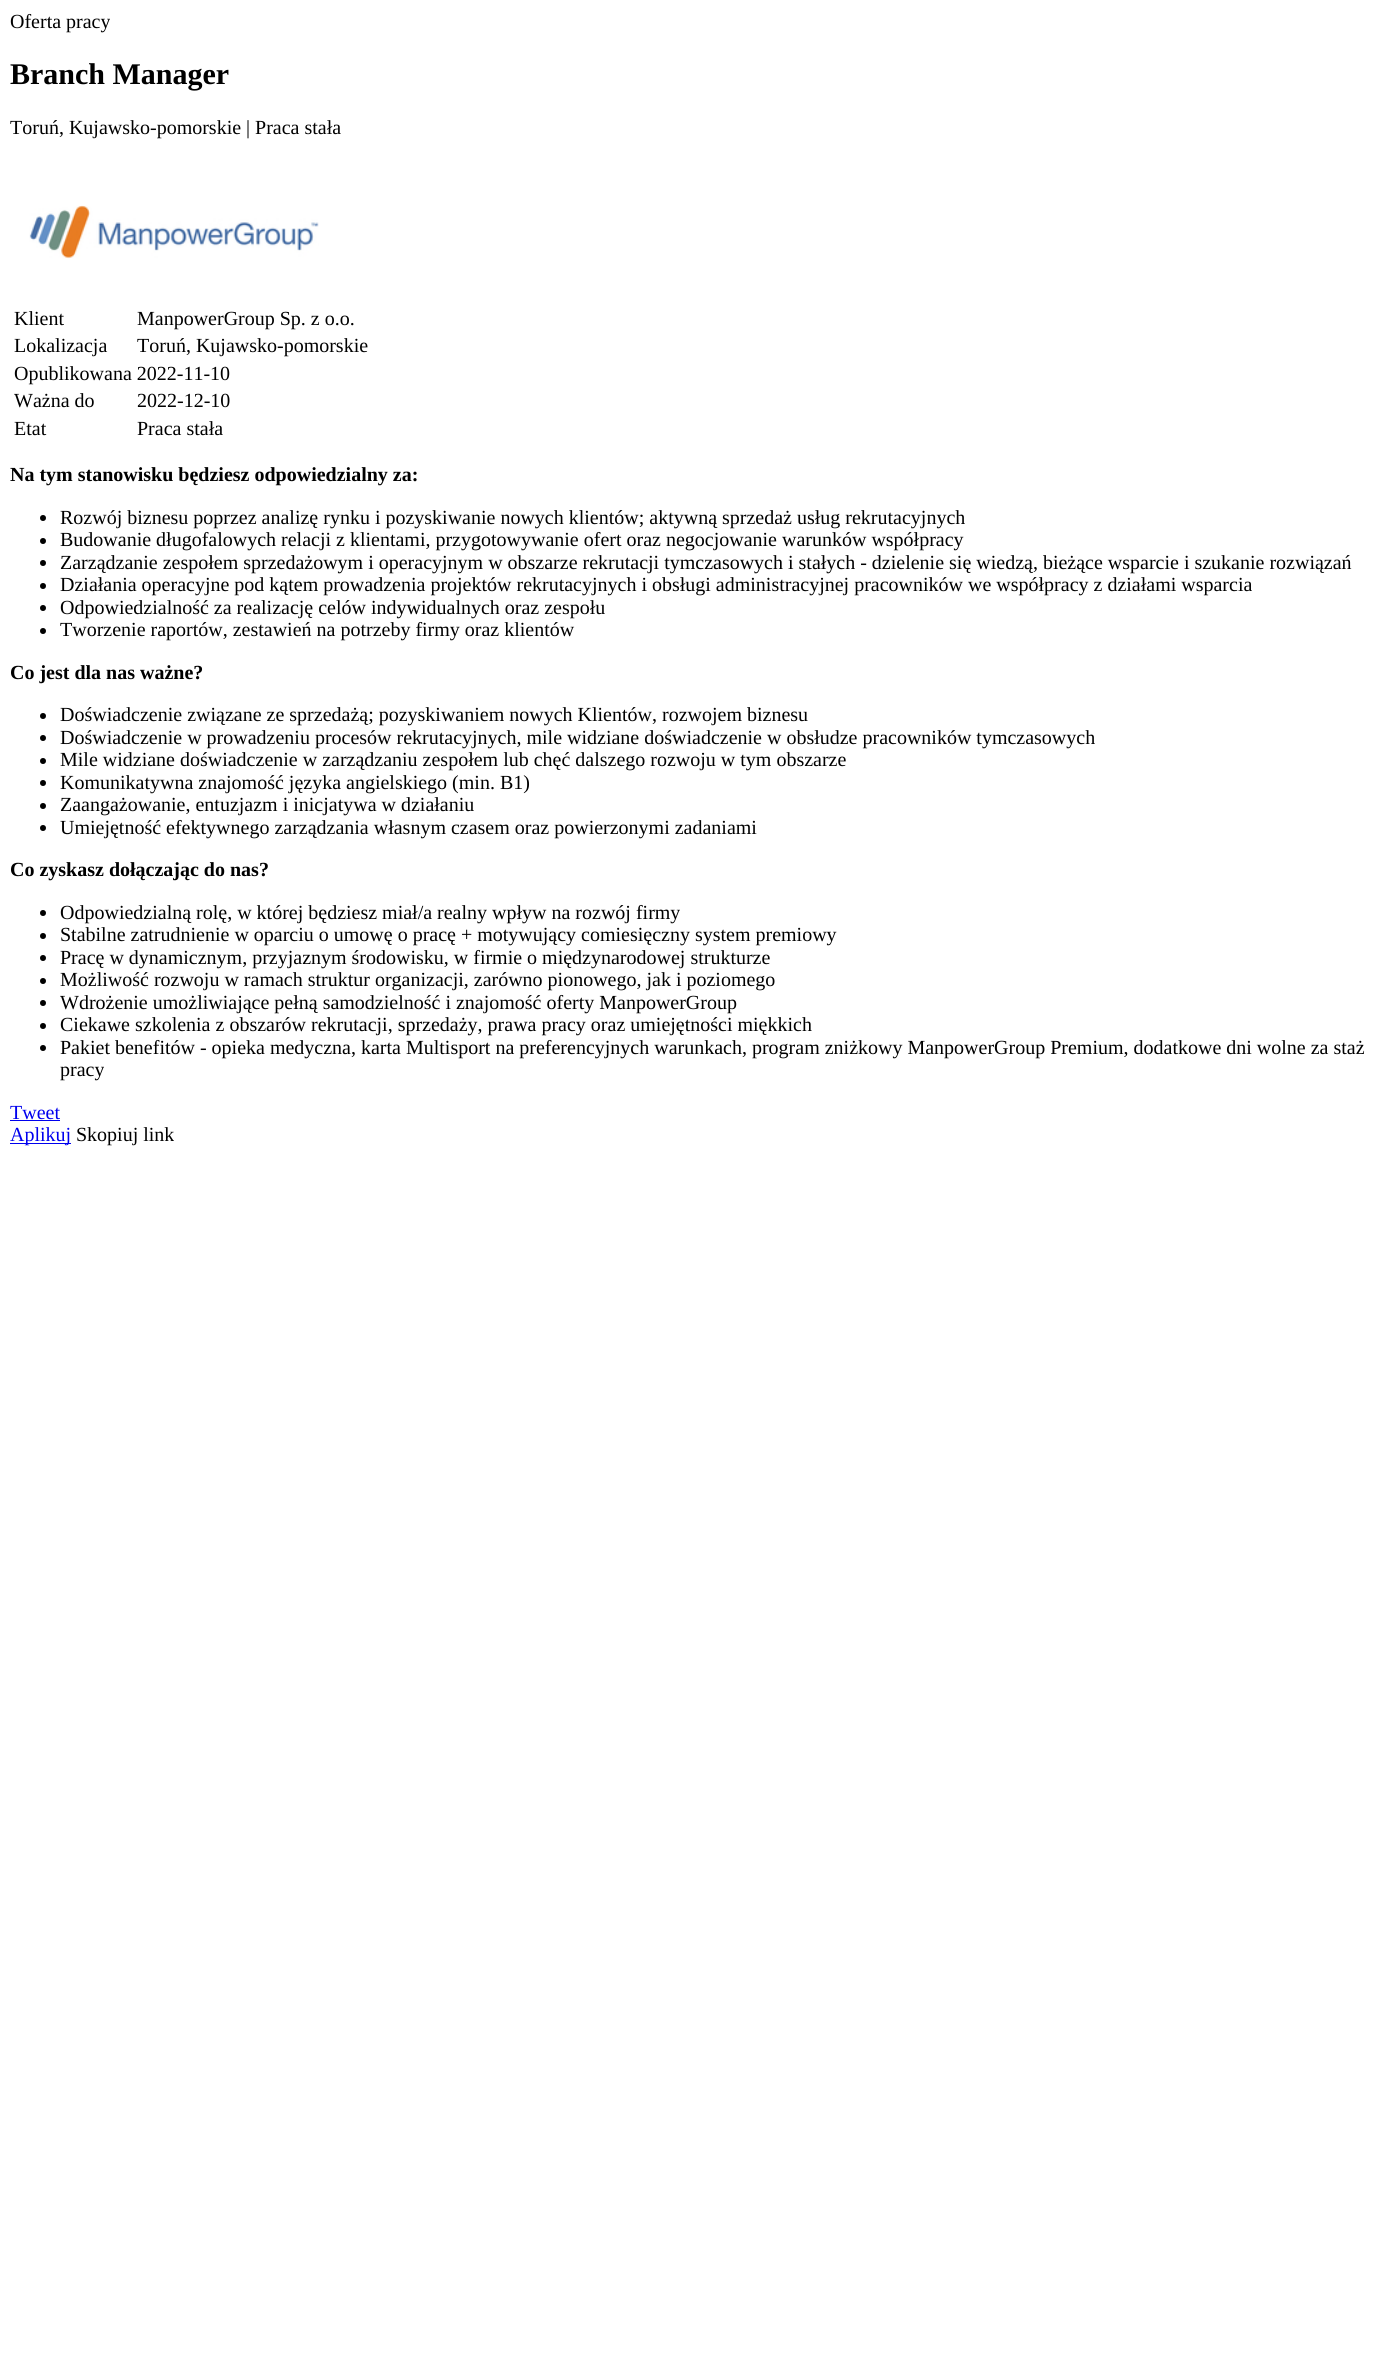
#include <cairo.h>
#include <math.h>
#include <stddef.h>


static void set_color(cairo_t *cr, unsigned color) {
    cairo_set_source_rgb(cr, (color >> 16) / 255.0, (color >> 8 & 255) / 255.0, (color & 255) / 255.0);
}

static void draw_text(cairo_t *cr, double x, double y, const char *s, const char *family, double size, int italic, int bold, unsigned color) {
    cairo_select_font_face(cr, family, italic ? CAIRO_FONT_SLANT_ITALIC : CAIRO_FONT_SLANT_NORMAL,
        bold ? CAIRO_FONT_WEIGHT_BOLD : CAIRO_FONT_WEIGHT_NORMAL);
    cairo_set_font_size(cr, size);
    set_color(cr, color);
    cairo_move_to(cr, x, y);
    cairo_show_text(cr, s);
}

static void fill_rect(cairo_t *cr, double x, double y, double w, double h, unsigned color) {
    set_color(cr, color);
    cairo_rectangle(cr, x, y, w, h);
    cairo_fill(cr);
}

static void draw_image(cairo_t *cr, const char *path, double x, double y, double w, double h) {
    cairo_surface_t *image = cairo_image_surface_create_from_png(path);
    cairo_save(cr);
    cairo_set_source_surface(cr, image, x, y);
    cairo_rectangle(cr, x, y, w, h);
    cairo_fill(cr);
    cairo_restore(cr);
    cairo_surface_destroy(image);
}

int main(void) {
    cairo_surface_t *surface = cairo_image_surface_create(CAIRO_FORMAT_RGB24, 1400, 2361);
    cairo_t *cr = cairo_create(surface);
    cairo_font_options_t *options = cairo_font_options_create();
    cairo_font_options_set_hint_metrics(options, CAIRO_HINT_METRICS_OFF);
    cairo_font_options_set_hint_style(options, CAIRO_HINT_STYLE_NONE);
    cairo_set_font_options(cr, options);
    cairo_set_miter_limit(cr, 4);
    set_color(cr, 0xFFFFFF);
    cairo_paint(cr);
    draw_text(cr, 10, 28, "Oferta pracy", "Liberation Serif", 20, 0, 0, 0x000000);
    draw_text(cr, 10, 84, "Branch Manager", "Liberation Serif", 30, 0, 1, 0x000000);
    draw_text(cr, 10, 134, "Toruń, Kujawsko-pomorskie | Praca stała", "Liberation Serif", 20, 0, 0, 0x000000);
    draw_image(cr, "assets/img1.png", 29, 205, 290, 54);
    draw_text(cr, 14, 325, "Klient", "Liberation Serif", 20, 0, 0, 0x000000);
    draw_text(cr, 137, 325, "ManpowerGroup Sp. z o.o.", "Liberation Serif", 20, 0, 0, 0x000000);
    draw_text(cr, 14, 352, "Lokalizacja", "Liberation Serif", 20, 0, 0, 0x000000);
    draw_text(cr, 137, 352, "Toruń, Kujawsko-pomorskie", "Liberation Serif", 20, 0, 0, 0x000000);
    draw_text(cr, 14, 380, "Opublikowana 2022-11-10", "Liberation Serif", 20, 0, 0, 0x000000);
    draw_text(cr, 14, 407, "Ważna do", "Liberation Serif", 20, 0, 0, 0x000000);
    draw_text(cr, 137, 407, "2022-12-10", "Liberation Serif", 20, 0, 0, 0x000000);
    draw_text(cr, 14, 435, "Etat", "Liberation Serif", 20, 0, 0, 0x000000);
    draw_text(cr, 137, 435, "Praca stała", "Liberation Serif", 20, 0, 0, 0x000000);
    draw_text(cr, 10, 481, "Na tym stanowisku będziesz odpowiedzialny za:", "Liberation Serif", 20, 0, 1, 0x000000);
    cairo_new_path(cr);
    cairo_arc(cr, 43, 518, 3, 0, 2 * M_PI);
    cairo_fill(cr);
    draw_text(cr, 60, 524, "Rozwój biznesu poprzez analizę rynku i pozyskiwanie nowych klientów; aktywną sprzedaż usług rekrutacyjnych", "Liberation Serif", 20, 0, 0, 0x000000);
    cairo_new_path(cr);
    cairo_arc(cr, 43, 541, 3, 0, 2 * M_PI);
    cairo_fill(cr);
    draw_text(cr, 60, 546, "Budowanie długofalowych relacji z klientami, przygotowywanie ofert oraz negocjowanie warunków współpracy", "Liberation Serif", 20, 0, 0, 0x000000);
    cairo_new_path(cr);
    cairo_arc(cr, 43, 563, 3, 0, 2 * M_PI);
    cairo_fill(cr);
    draw_text(cr, 60, 569, "Zarządzanie zespołem sprzedażowym i operacyjnym w obszarze rekrutacji tymczasowych i stałych - dzielenie się wiedzą, bieżące wsparcie i szukanie rozwiązań", "Liberation Serif", 20, 0, 0, 0x000000);
    cairo_new_path(cr);
    cairo_arc(cr, 43, 586, 3, 0, 2 * M_PI);
    cairo_fill(cr);
    draw_text(cr, 60, 591, "Działania operacyjne pod kątem prowadzenia projektów rekrutacyjnych i obsługi administracyjnej pracowników we współpracy z działami wsparcia", "Liberation Serif", 20, 0, 0, 0x000000);
    cairo_new_path(cr);
    cairo_arc(cr, 43, 608, 3, 0, 2 * M_PI);
    cairo_fill(cr);
    draw_text(cr, 60, 614, "Odpowiedzialność za realizację celów indywidualnych oraz zespołu", "Liberation Serif", 20, 0, 0, 0x000000);
    cairo_new_path(cr);
    cairo_arc(cr, 43, 631, 3, 0, 2 * M_PI);
    cairo_fill(cr);
    draw_text(cr, 60, 636, "Tworzenie raportów, zestawień na potrzeby firmy oraz klientów", "Liberation Serif", 20, 0, 0, 0x000000);
    draw_text(cr, 10, 679, "Co jest dla nas ważne?", "Liberation Serif", 20, 0, 1, 0x000000);
    cairo_new_path(cr);
    cairo_arc(cr, 43, 716, 3, 0, 2 * M_PI);
    cairo_fill(cr);
    draw_text(cr, 60, 721, "Doświadczenie związane ze sprzedażą; pozyskiwaniem nowych Klientów, rozwojem biznesu", "Liberation Serif", 20, 0, 0, 0x000000);
    cairo_new_path(cr);
    cairo_arc(cr, 43, 738, 3, 0, 2 * M_PI);
    cairo_fill(cr);
    draw_text(cr, 60, 744, "Doświadczenie w prowadzeniu procesów rekrutacyjnych, mile widziane doświadczenie w obsłudze pracowników tymczasowych", "Liberation Serif", 20, 0, 0, 0x000000);
    cairo_new_path(cr);
    cairo_arc(cr, 43, 761, 3, 0, 2 * M_PI);
    cairo_fill(cr);
    draw_text(cr, 60, 766, "Mile widziane doświadczenie w zarządzaniu zespołem lub chęć dalszego rozwoju w tym obszarze", "Liberation Serif", 20, 0, 0, 0x000000);
    cairo_new_path(cr);
    cairo_arc(cr, 43, 783, 3, 0, 2 * M_PI);
    cairo_fill(cr);
    draw_text(cr, 60, 789, "Komunikatywna znajomość języka angielskiego (min. B1)", "Liberation Serif", 20, 0, 0, 0x000000);
    cairo_new_path(cr);
    cairo_arc(cr, 43, 806, 3, 0, 2 * M_PI);
    cairo_fill(cr);
    draw_text(cr, 60, 811, "Zaangażowanie, entuzjazm i inicjatywa w działaniu", "Liberation Serif", 20, 0, 0, 0x000000);
    cairo_new_path(cr);
    cairo_arc(cr, 43, 828, 3, 0, 2 * M_PI);
    cairo_fill(cr);
    draw_text(cr, 60, 834, "Umiejętność efektywnego zarządzania własnym czasem oraz powierzonymi zadaniami", "Liberation Serif", 20, 0, 0, 0x000000);
    draw_text(cr, 10, 876, "Co zyskasz dołączając do nas?", "Liberation Serif", 20, 0, 1, 0x000000);
    cairo_new_path(cr);
    cairo_arc(cr, 43, 913, 3, 0, 2 * M_PI);
    cairo_fill(cr);
    draw_text(cr, 60, 919, "Odpowiedzialną rolę, w której będziesz miał/a realny wpływ na rozwój firmy", "Liberation Serif", 20, 0, 0, 0x000000);
    cairo_new_path(cr);
    cairo_arc(cr, 43, 936, 3, 0, 2 * M_PI);
    cairo_fill(cr);
    draw_text(cr, 60, 941, "Stabilne zatrudnienie w oparciu o umowę o pracę + motywujący comiesięczny system premiowy", "Liberation Serif", 20, 0, 0, 0x000000);
    cairo_new_path(cr);
    cairo_arc(cr, 43, 958, 3, 0, 2 * M_PI);
    cairo_fill(cr);
    draw_text(cr, 60, 964, "Pracę w dynamicznym, przyjaznym środowisku, w firmie o międzynarodowej strukturze", "Liberation Serif", 20, 0, 0, 0x000000);
    cairo_new_path(cr);
    cairo_arc(cr, 43, 981, 3, 0, 2 * M_PI);
    cairo_fill(cr);
    draw_text(cr, 60, 986, "Możliwość rozwoju w ramach struktur organizacji, zarówno pionowego, jak i poziomego", "Liberation Serif", 20, 0, 0, 0x000000);
    cairo_new_path(cr);
    cairo_arc(cr, 43, 1003, 3, 0, 2 * M_PI);
    cairo_fill(cr);
    draw_text(cr, 60, 1009, "Wdrożenie umożliwiające pełną samodzielność i znajomość oferty ManpowerGroup", "Liberation Serif", 20, 0, 0, 0x000000);
    cairo_new_path(cr);
    cairo_arc(cr, 43, 1026, 3, 0, 2 * M_PI);
    cairo_fill(cr);
    draw_text(cr, 60, 1031, "Ciekawe szkolenia z obszarów rekrutacji, sprzedaży, prawa pracy oraz umiejętności miękkich", "Liberation Serif", 20, 0, 0, 0x000000);
    cairo_new_path(cr);
    cairo_arc(cr, 43, 1048, 3, 0, 2 * M_PI);
    cairo_fill(cr);
    draw_text(cr, 60, 1054, "Pakiet benefitów - opieka medyczna, karta Multisport na preferencyjnych warunkach, program zniżkowy ManpowerGroup Premium, dodatkowe dni wolne za staż", "Liberation Serif", 20, 0, 0, 0x000000);
    draw_text(cr, 60, 1076, "pracy", "Liberation Serif", 20, 0, 0, 0x000000);
    draw_text(cr, 10, 1119, "Tweet", "Liberation Serif", 20, 0, 0, 0x0000EE);
    fill_rect(cr, 10, 1120, 50, 1, 0x0000EE);
    fill_rect(cr, 10, 1143, 61, 1, 0x0000EE);
    draw_text(cr, 10, 1141, "Aplikuj", "Liberation Serif", 20, 0, 0, 0x0000EE);
    draw_text(cr, 76, 1141, "Skopiuj link", "Liberation Serif", 20, 0, 0, 0x000000);
    cairo_surface_write_to_png(surface, "output.png");
    cairo_font_options_destroy(options);
    cairo_destroy(cr);
    cairo_surface_destroy(surface);
    return 0;
}
